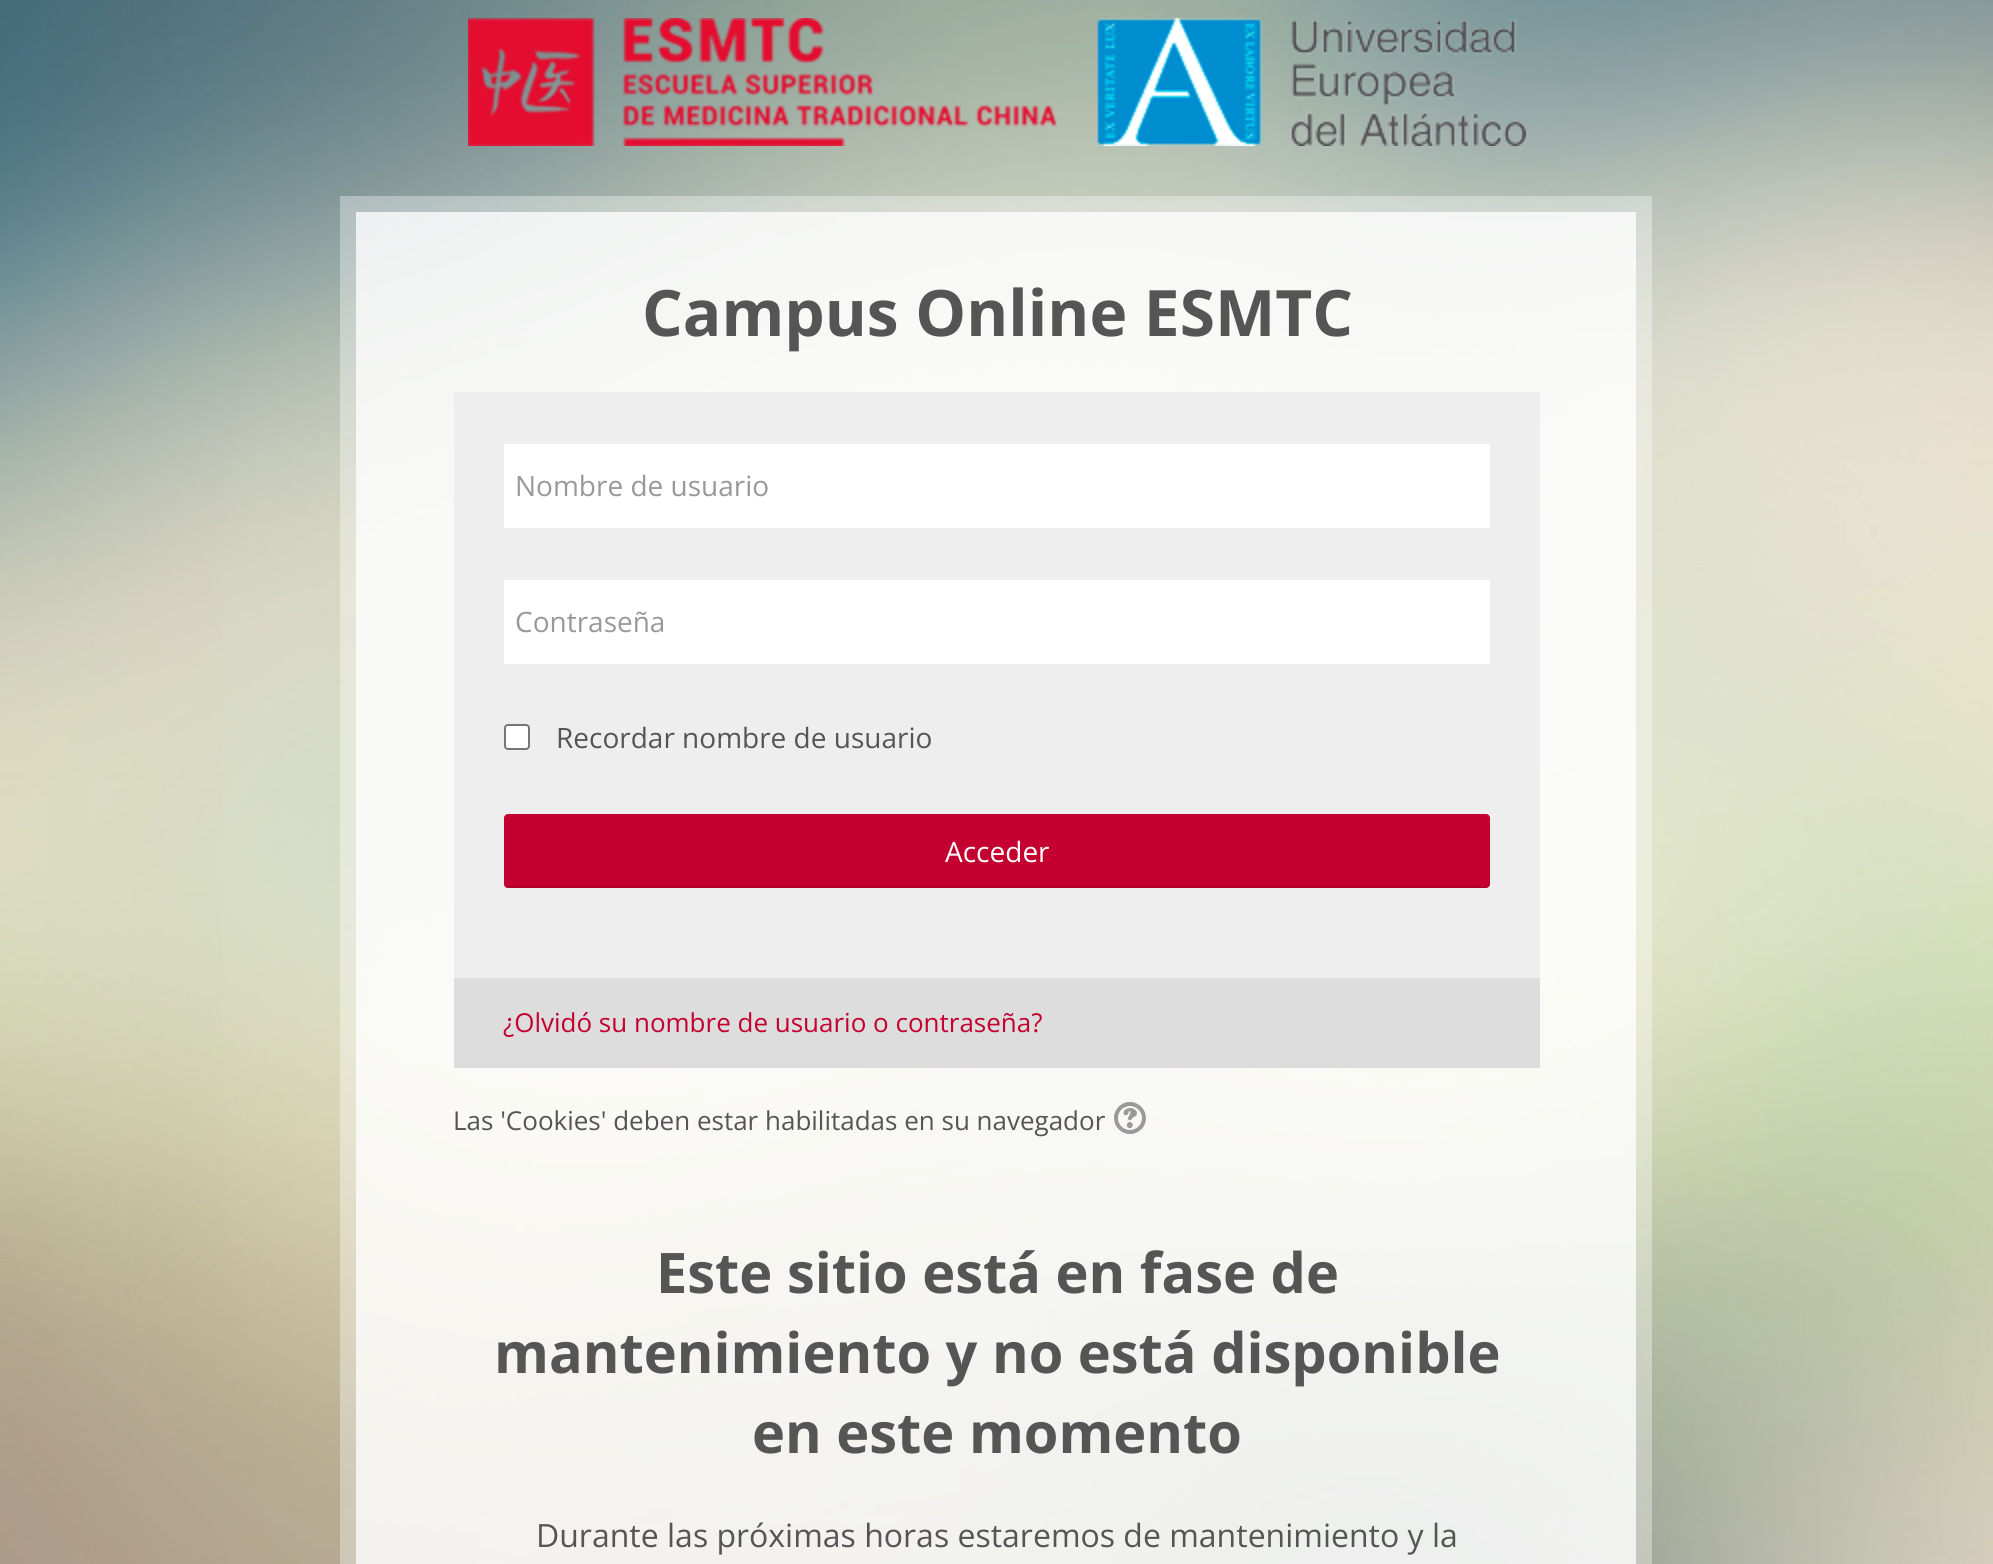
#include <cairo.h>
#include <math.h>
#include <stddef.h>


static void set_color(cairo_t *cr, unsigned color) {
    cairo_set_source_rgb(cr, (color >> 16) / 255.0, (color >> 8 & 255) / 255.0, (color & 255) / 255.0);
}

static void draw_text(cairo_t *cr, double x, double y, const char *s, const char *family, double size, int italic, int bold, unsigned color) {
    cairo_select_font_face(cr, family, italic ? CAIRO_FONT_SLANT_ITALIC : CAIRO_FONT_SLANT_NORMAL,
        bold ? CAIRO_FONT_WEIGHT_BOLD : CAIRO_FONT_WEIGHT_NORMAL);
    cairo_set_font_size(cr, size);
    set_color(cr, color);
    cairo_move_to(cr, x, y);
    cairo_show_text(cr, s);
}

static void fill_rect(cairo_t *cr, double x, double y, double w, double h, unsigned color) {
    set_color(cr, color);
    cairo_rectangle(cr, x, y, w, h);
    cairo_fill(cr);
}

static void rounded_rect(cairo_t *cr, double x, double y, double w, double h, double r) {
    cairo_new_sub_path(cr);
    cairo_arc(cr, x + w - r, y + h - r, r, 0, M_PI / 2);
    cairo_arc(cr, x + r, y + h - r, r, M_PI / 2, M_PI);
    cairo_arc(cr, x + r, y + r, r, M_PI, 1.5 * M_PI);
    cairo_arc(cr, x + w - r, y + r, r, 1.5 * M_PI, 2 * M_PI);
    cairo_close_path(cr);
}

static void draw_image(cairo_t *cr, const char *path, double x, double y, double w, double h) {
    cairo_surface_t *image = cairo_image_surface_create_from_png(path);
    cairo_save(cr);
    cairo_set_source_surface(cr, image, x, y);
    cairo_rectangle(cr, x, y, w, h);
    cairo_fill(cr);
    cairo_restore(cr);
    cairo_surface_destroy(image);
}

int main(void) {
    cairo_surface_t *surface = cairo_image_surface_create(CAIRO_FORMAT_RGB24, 1993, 1564);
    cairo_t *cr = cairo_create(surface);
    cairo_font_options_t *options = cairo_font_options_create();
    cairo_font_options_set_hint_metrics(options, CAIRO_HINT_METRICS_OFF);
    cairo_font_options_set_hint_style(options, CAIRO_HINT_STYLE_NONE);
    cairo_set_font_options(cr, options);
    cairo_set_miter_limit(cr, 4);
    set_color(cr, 0xFFFFFF);
    cairo_paint(cr);
    draw_image(cr, "assets/img1.png", 0, 0, 1993, 1564);
    draw_image(cr, "assets/img2.png", 468, 18, 1058, 128);
    cairo_set_source_rgba(cr, 1, 1, 1, 0.85);
    cairo_rectangle(cr, 356, 212, 1280, 1352);
    cairo_fill(cr);
    cairo_new_path(cr);
    cairo_move_to(cr, 348, 204);
    cairo_line_to(cr, 1644, 204);
    cairo_line_to(cr, 1644, 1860);
    cairo_line_to(cr, 348, 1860);
    cairo_close_path(cr);
    cairo_set_source_rgba(cr, 1, 1, 1, 0.35);
    cairo_set_line_width(cr, 16);
    cairo_stroke(cr);
    draw_text(cr, 642, 336, "Campus Online ESMTC", "Open Sans", 64, 0, 1, 0x555555);
    fill_rect(cr, 454, 392, 1086, 586, 0xEEEEEE);
    fill_rect(cr, 504, 444, 986, 84, 0xFFFFFF);
    draw_text(cr, 515, 496, "Nombre de usuario", "Open Sans", 28, 0, 0, 0x999999);
    fill_rect(cr, 504, 580, 986, 84, 0xFFFFFF);
    draw_text(cr, 515, 632, "Contraseña", "Open Sans", 28, 0, 0, 0x999999);
    set_color(cr, 0xFFFFFF);
    rounded_rect(cr, 505, 725, 24, 24, 3);
    cairo_fill_preserve(cr);
    set_color(cr, 0x767676);
    cairo_set_line_width(cr, 2);
    cairo_stroke(cr);
    draw_text(cr, 556, 748, "Recordar nombre de usuario", "Open Sans", 28, 0, 0, 0x555555);
    set_color(cr, 0xC3002F);
    rounded_rect(cr, 504, 814, 986, 74, 4);
    cairo_fill(cr);
    cairo_set_source_rgba(cr, 0, 0, 0, 0.1);
    cairo_new_path(cr);
    cairo_move_to(cr, 504, 882);
    cairo_line_to(cr, 504, 884);
    cairo_curve_to(cr, 504, 886, 506, 888, 508, 888);
    cairo_line_to(cr, 1486, 888);
    cairo_curve_to(cr, 1488, 888, 1490, 886, 1490, 884);
    cairo_line_to(cr, 1490, 882);
    cairo_curve_to(cr, 1490, 884, 1488, 886, 1486, 886);
    cairo_line_to(cr, 508, 886);
    cairo_curve_to(cr, 506, 886, 504, 884, 504, 882);
    cairo_close_path(cr);
    cairo_fill(cr);
    draw_text(cr, 945, 862, "Acceder", "Open Sans", 28, 0, 0, 0xFFFFFF);
    fill_rect(cr, 454, 978, 1086, 90, 0xDDDDDD);
    draw_text(cr, 503, 1032, "¿Olvidó su nombre de usuario o contraseña?", "Open Sans", 26, 0, 0, 0xC3002F);
    draw_text(cr, 453, 1130, "Las 'Cookies' deben estar habilitadas en su navegador", "Open Sans", 26, 0, 0, 0x555555);
    draw_image(cr, "assets/img3.png", 1114, 1102, 32, 32);
    draw_text(cr, 656, 1293, "Este sitio está en fase de", "Open Sans", 55.9, 0, 1, 0x555555);
    draw_text(cr, 494, 1373, "mantenimiento y no está disponible", "Open Sans", 55.9, 0, 1, 0x555555);
    draw_text(cr, 752, 1453, "en este momento", "Open Sans", 55.9, 0, 1, 0x555555);
    draw_text(cr, 536, 1547, "Durante las próximas horas estaremos de mantenimiento y la", "Open Sans", 32, 0, 0, 0x555555);
    cairo_surface_write_to_png(surface, "output.png");
    cairo_font_options_destroy(options);
    cairo_destroy(cr);
    cairo_surface_destroy(surface);
    return 0;
}
